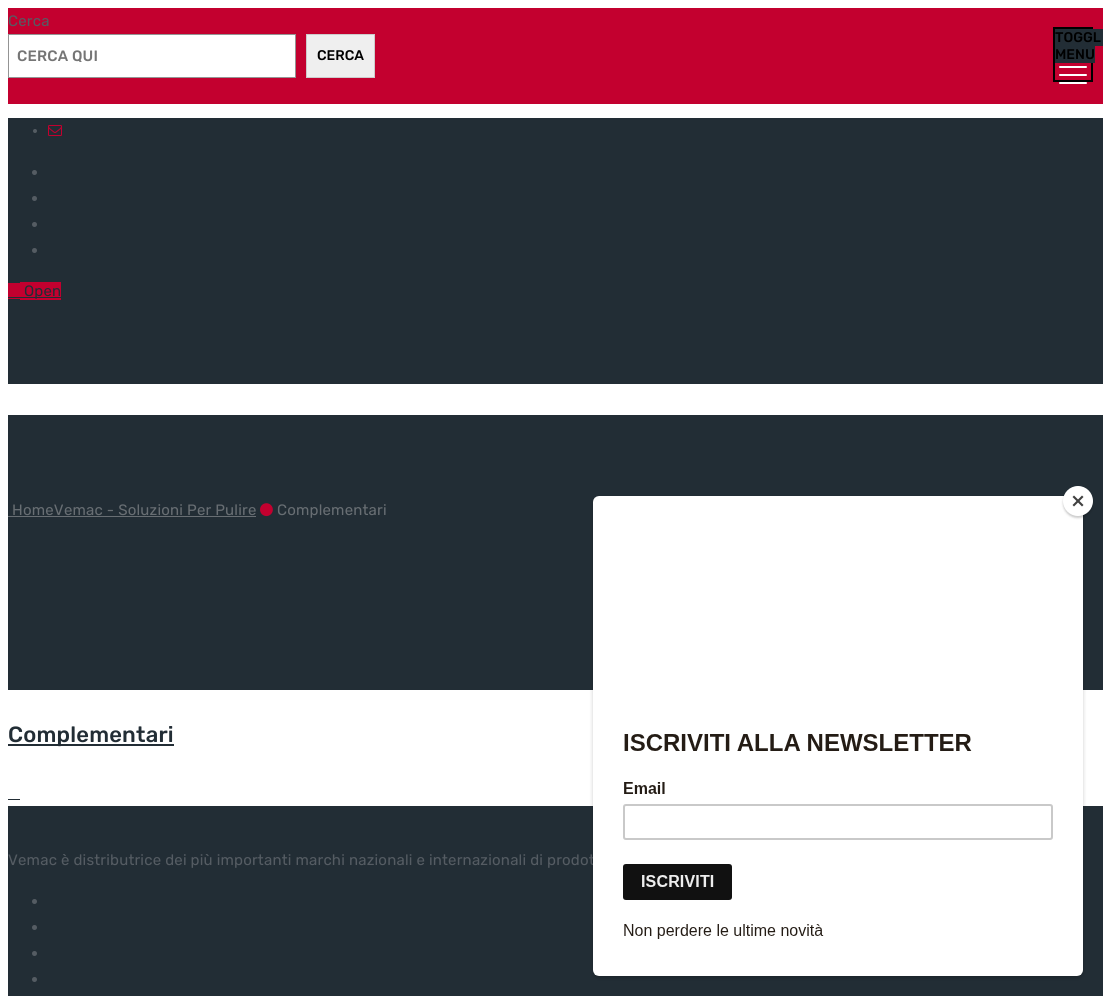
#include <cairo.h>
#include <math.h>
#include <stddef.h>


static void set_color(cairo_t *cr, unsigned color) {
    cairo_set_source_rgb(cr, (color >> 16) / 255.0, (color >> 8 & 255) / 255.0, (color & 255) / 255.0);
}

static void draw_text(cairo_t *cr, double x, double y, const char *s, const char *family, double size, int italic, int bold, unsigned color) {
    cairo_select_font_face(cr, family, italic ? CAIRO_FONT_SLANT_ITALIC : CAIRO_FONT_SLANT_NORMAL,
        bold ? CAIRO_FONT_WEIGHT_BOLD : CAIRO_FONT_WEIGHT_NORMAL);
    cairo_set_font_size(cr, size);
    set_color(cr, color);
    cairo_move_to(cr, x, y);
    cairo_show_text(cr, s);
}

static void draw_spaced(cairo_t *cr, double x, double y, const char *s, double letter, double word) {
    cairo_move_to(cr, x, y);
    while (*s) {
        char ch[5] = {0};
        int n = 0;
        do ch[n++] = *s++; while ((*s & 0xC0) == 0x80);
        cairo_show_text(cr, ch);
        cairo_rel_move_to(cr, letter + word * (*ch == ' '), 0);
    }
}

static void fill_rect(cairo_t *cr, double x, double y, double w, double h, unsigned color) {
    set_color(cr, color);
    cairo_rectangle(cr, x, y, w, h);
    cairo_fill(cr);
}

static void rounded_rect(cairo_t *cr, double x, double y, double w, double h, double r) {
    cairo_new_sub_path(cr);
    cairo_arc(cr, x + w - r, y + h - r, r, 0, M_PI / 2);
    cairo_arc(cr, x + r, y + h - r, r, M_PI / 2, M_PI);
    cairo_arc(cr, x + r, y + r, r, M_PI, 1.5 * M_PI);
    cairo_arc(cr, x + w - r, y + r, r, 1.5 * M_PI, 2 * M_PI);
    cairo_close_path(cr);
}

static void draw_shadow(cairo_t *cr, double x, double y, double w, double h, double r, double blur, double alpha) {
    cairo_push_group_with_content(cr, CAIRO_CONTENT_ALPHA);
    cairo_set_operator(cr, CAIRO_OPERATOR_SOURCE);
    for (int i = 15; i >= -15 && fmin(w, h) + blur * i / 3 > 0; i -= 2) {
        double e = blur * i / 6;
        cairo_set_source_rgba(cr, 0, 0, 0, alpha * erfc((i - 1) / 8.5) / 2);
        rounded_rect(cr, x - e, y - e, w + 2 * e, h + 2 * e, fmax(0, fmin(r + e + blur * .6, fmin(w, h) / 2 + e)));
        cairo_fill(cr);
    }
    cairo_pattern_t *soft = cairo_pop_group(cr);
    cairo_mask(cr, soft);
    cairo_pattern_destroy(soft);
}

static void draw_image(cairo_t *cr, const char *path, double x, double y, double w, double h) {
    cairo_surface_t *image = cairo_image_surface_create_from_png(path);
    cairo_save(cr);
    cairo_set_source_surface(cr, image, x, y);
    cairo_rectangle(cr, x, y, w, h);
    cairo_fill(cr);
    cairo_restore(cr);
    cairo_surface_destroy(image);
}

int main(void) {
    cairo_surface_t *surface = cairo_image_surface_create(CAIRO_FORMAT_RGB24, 1103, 996);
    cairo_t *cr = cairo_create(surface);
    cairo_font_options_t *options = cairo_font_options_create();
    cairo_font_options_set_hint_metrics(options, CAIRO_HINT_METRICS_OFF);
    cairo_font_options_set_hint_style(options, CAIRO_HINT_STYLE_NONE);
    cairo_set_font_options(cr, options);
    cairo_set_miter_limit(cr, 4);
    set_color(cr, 0xFFFFFF);
    cairo_paint(cr);
    fill_rect(cr, 8, 8, 1095, 96, 0xC3002F);
    cairo_select_font_face(cr, "Rubik", CAIRO_FONT_SLANT_NORMAL, CAIRO_FONT_WEIGHT_NORMAL);
    cairo_set_font_size(cr, 15);
    set_color(cr, 0x555C63);
    draw_spaced(cr, 8, 26, "Cerca", 0.2, 0);
    set_color(cr, 0xFFFFFF);
    cairo_rectangle(cr, 8.5, 34.5, 287, 43);
    cairo_fill_preserve(cr);
    set_color(cr, 0x949494);
    cairo_set_line_width(cr, 1);
    cairo_stroke(cr);
    cairo_select_font_face(cr, "Rubik Medium", CAIRO_FONT_SLANT_NORMAL, CAIRO_FONT_WEIGHT_NORMAL);
    set_color(cr, 0x757575);
    draw_spaced(cr, 17, 61, "CERCA QUI", 0.2, 0);
    set_color(cr, 0xEFEFEF);
    cairo_rectangle(cr, 306.5, 34.5, 68, 43);
    cairo_fill_preserve(cr);
    set_color(cr, 0xCCCCCC);
    cairo_stroke(cr);
    draw_text(cr, 317, 60, "CERCA", "Rubik Medium", 14, 0, 0, 0x000000);
    cairo_rectangle(cr, 1054, 28, 38, 53);
    cairo_set_line_width(cr, 2);
    cairo_stroke(cr);
    fill_rect(cr, 1055, 29, 48, 17, 0x222D35);
    draw_text(cr, 1055, 42, "TOGGL", "Rubik Medium", 14, 0, 0, 0x000000);
    fill_rect(cr, 1055, 46, 40, 17, 0x222D35);
    draw_text(cr, 1055, 59, "MENU", "Rubik Medium", 14, 0, 0, 0x000000);
    set_color(cr, 0xFFFFFF);
    rounded_rect(cr, 1059, 74, 28, 2, 1);
    cairo_fill(cr);
    rounded_rect(cr, 1059, 66, 28, 2, 1);
    cairo_fill(cr);
    rounded_rect(cr, 1059, 82, 28, 2, 1);
    cairo_fill(cr);
    fill_rect(cr, 8, 118, 1095, 266, 0x222D35);
    set_color(cr, 0x555C63);
    cairo_arc(cr, 35, 131, 2, 0, 2 * M_PI);
    cairo_fill(cr);
    draw_image(cr, "assets/img1.png", 48, 125, 14, 11);
    cairo_arc(cr, 34.5, 172.5, 2.5, 0, 2 * M_PI);
    cairo_fill(cr);
    cairo_arc(cr, 34.5, 198.5, 2.5, 0, 2 * M_PI);
    cairo_fill(cr);
    cairo_arc(cr, 34.5, 224.5, 2.5, 0, 2 * M_PI);
    cairo_fill(cr);
    cairo_arc(cr, 34.5, 250.5, 2.5, 0, 2 * M_PI);
    cairo_fill(cr);
    fill_rect(cr, 20, 282, 41, 18, 0xC3002F);
    fill_rect(cr, 8, 283, 12, 16, 0xC3002F);
    fill_rect(cr, 8, 297, 53, 1, 0x222D35);
    cairo_select_font_face(cr, "Rubik", CAIRO_FONT_SLANT_NORMAL, CAIRO_FONT_WEIGHT_NORMAL);
    cairo_set_font_size(cr, 15);
    draw_spaced(cr, 24, 296, "Open", 0.2, 0);
    fill_rect(cr, 8, 415, 1095, 275, 0x222D35);
    set_color(cr, 0x686E73);
    draw_spaced(cr, 12, 515, "HomeVemac - Soluzioni Per Pulire", 0.2, 0);
    fill_rect(cr, 8, 516, 248, 1, 0x686E73);
    draw_image(cr, "assets/img2.png", 260, 503, 13, 14);
    draw_spaced(cr, 277, 515, "Complementari", 0.2, 0);
    fill_rect(cr, 8, 744, 166, 2, 0x222D35);
    cairo_select_font_face(cr, "Rubik Medium", CAIRO_FONT_SLANT_NORMAL, CAIRO_FONT_WEIGHT_NORMAL);
    cairo_set_font_size(cr, 22);
    draw_spaced(cr, 8, 742, "Complementari", 0.2, 0);
    fill_rect(cr, 8, 799, 12, 1, 0x222D35);
    fill_rect(cr, 8, 806, 1095, 190, 0x222D35);
    cairo_select_font_face(cr, "Rubik", CAIRO_FONT_SLANT_NORMAL, CAIRO_FONT_WEIGHT_NORMAL);
    cairo_set_font_size(cr, 15);
    set_color(cr, 0x555C63);
    draw_spaced(cr, 8, 865, "Vemac è distributrice dei più importanti marchi nazionali e internazionali di prodot", 0.2, 0);
    cairo_new_path(cr);
    cairo_arc(cr, 34.5, 901.5, 2.5, 0, 2 * M_PI);
    cairo_fill(cr);
    cairo_arc(cr, 34.5, 927.5, 2.5, 0, 2 * M_PI);
    cairo_fill(cr);
    cairo_arc(cr, 34.5, 953.5, 2.5, 0, 2 * M_PI);
    cairo_fill(cr);
    cairo_arc(cr, 34.5, 979.5, 2.5, 0, 2 * M_PI);
    cairo_fill(cr);
    set_color(cr, 0x000000);
    draw_shadow(cr, 593, 498, 490, 480, 6, 2, 0.2);
    draw_image(cr, "assets/img3.png", 593, 496, 490, 480);
    draw_shadow(cr, 1063, 488, 30, 30, 15, 1, 0.2);
    set_color(cr, 0xFFFFFF);
    cairo_arc(cr, 1078, 501, 15, 0, 2 * M_PI);
    cairo_fill(cr);
    set_color(cr, 0x414141);
    cairo_new_path(cr);
    cairo_move_to(cr, 1082, 495.5);
    cairo_line_to(cr, 1083.5, 497);
    cairo_line_to(cr, 1074, 506.5);
    cairo_line_to(cr, 1072.5, 505);
    cairo_close_path(cr);
    cairo_fill(cr);
    cairo_new_path(cr);
    cairo_move_to(cr, 1072.5, 497);
    cairo_line_to(cr, 1074, 495.5);
    cairo_line_to(cr, 1083.5, 505);
    cairo_line_to(cr, 1082, 506.5);
    cairo_close_path(cr);
    cairo_fill(cr);
    cairo_surface_write_to_png(surface, "output.png");
    cairo_font_options_destroy(options);
    cairo_destroy(cr);
    cairo_surface_destroy(surface);
    return 0;
}
